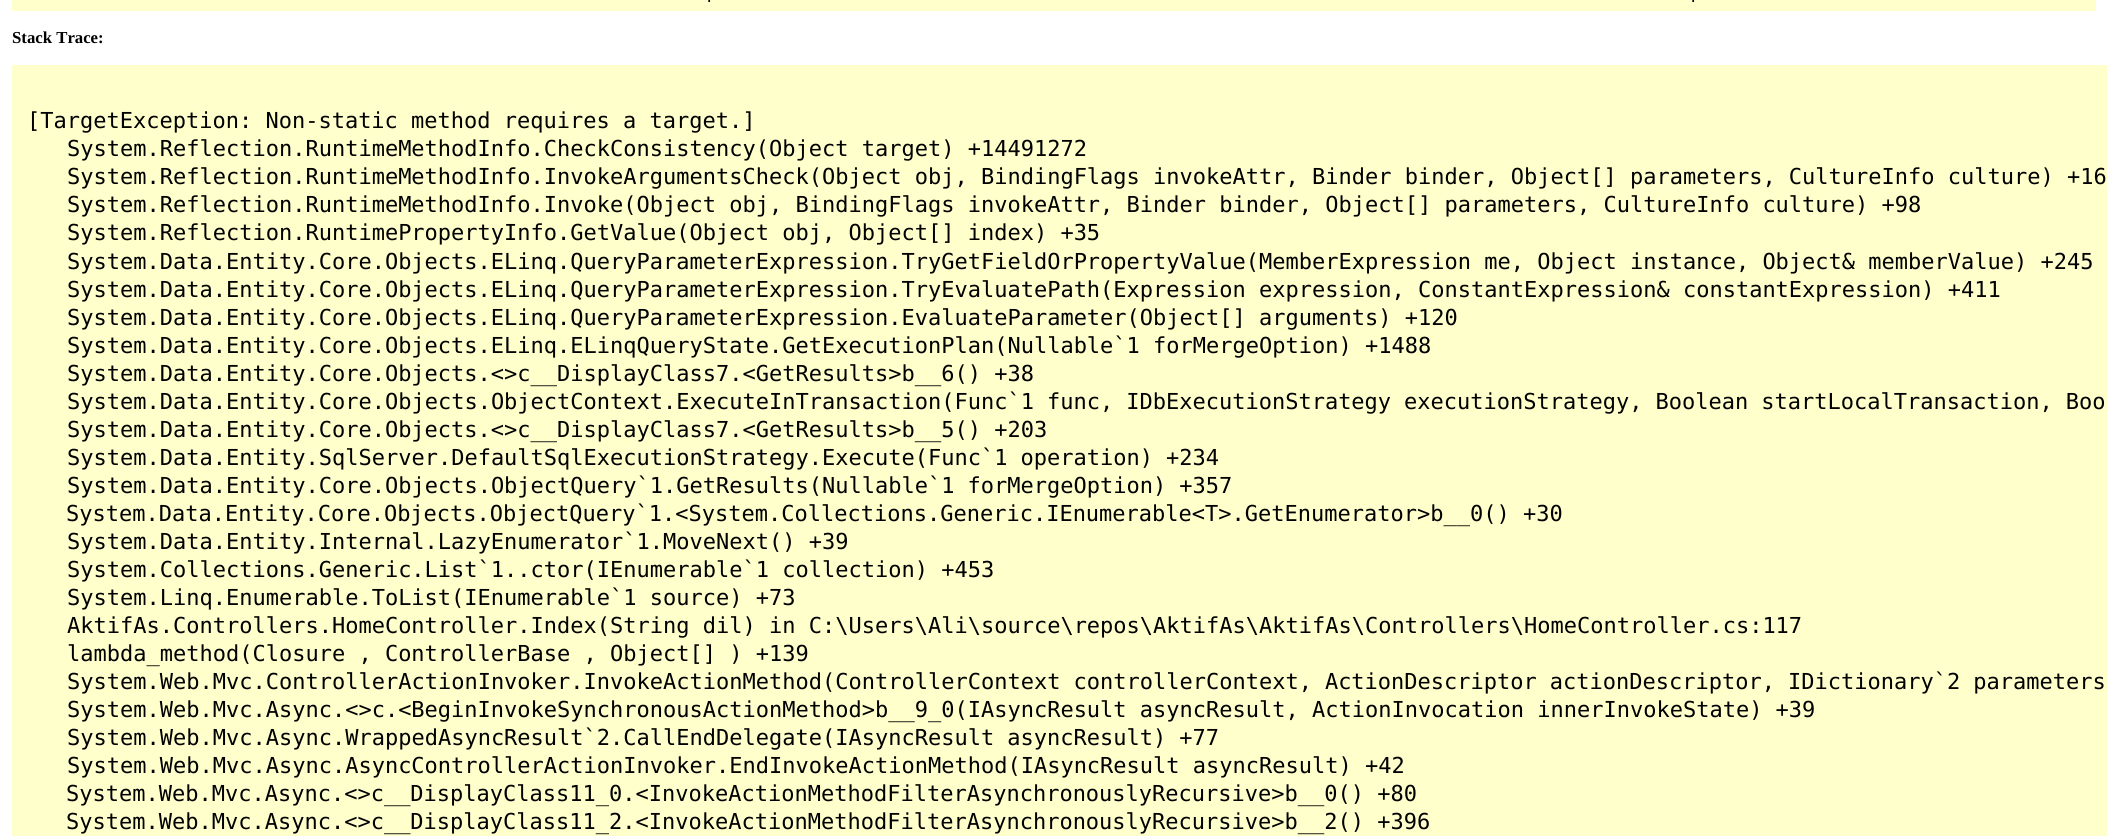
#include <cairo.h>
#include <math.h>
#include <stddef.h>


static void set_color(cairo_t *cr, unsigned color) {
    cairo_set_source_rgb(cr, (color >> 16) / 255.0, (color >> 8 & 255) / 255.0, (color & 255) / 255.0);
}

static void draw_text(cairo_t *cr, double x, double y, const char *s, const char *family, double size, int italic, int bold, unsigned color) {
    cairo_select_font_face(cr, family, italic ? CAIRO_FONT_SLANT_ITALIC : CAIRO_FONT_SLANT_NORMAL,
        bold ? CAIRO_FONT_WEIGHT_BOLD : CAIRO_FONT_WEIGHT_NORMAL);
    cairo_set_font_size(cr, size);
    set_color(cr, color);
    cairo_move_to(cr, x, y);
    cairo_show_text(cr, s);
}

static void draw_spaced(cairo_t *cr, double x, double y, const char *s, double letter, double word) {
    cairo_move_to(cr, x, y);
    while (*s) {
        char ch[5] = {0};
        int n = 0;
        do ch[n++] = *s++; while ((*s & 0xC0) == 0x80);
        cairo_show_text(cr, ch);
        cairo_rel_move_to(cr, letter + word * (*ch == ' '), 0);
    }
}

static void fill_rect(cairo_t *cr, double x, double y, double w, double h, unsigned color) {
    set_color(cr, color);
    cairo_rectangle(cr, x, y, w, h);
    cairo_fill(cr);
}

int main(void) {
    cairo_surface_t *surface = cairo_image_surface_create(CAIRO_FORMAT_RGB24, 2107, 836);
    cairo_t *cr = cairo_create(surface);
    cairo_font_options_t *options = cairo_font_options_create();
    cairo_font_options_set_hint_metrics(options, CAIRO_HINT_METRICS_OFF);
    cairo_font_options_set_hint_style(options, CAIRO_HINT_STYLE_NONE);
    cairo_set_font_options(cr, options);
    cairo_set_miter_limit(cr, 4);
    set_color(cr, 0xFFFFFF);
    cairo_paint(cr);
    fill_rect(cr, 12, 0, 2084, 11, 0xFFFFCC);
    draw_text(cr, 705, 2, ".", "DejaVu Sans Mono", 14, 0, 0, 0x000000);
    draw_text(cr, 1689, 2, ".", "DejaVu Sans Mono", 14, 0, 0, 0x000000);
    draw_text(cr, 12, 43, "Stack Trace:", "Liberation Serif", 16.75, 0, 1, 0x000000);
    fill_rect(cr, 12, 65, 2095, 771, 0xFFFFCC);
    draw_text(cr, 27, 128, "[TargetException: Non-static method requires a target.]", "DejaVu Sans Mono", 22, 0, 0, 0x000000);
    draw_text(cr, 67, 156, "System.Reflection.RuntimeMethodInfo.CheckConsistency(Object target) +14491272", "DejaVu Sans Mono", 22, 0, 0, 0x000000);
    draw_text(cr, 67, 184, "System.Reflection.RuntimeMethodInfo.InvokeArgumentsCheck(Object obj, BindingFlags invokeAttr, Binder binder, Object[] parameters, CultureInfo culture) +16", "DejaVu Sans Mono", 22, 0, 0, 0x000000);
    draw_text(cr, 67, 212, "System.Reflection.RuntimeMethodInfo.Invoke(Object obj, BindingFlags invokeAttr, Binder binder, Object[] parameters, CultureInfo culture) +98", "DejaVu Sans Mono", 22, 0, 0, 0x000000);
    draw_text(cr, 67, 240, "System.Reflection.RuntimePropertyInfo.GetValue(Object obj, Object[] index) +35", "DejaVu Sans Mono", 22, 0, 0, 0x000000);
    draw_text(cr, 67, 269, "System.Data.Entity.Core.Objects.ELinq.QueryParameterExpression.TryGetFieldOrPropertyValue(MemberExpression me, Object instance, Object& memberValue) +245", "DejaVu Sans Mono", 22, 0, 0, 0x000000);
    draw_text(cr, 67, 297, "System.Data.Entity.Core.Objects.ELinq.QueryParameterExpression.TryEvaluatePath(Expression expression, ConstantExpression& constantExpression) +411", "DejaVu Sans Mono", 22, 0, 0, 0x000000);
    draw_text(cr, 67, 325, "System.Data.Entity.Core.Objects.ELinq.QueryParameterExpression.EvaluateParameter(Object[] arguments) +120", "DejaVu Sans Mono", 22, 0, 0, 0x000000);
    draw_text(cr, 67, 353, "System.Data.Entity.Core.Objects.ELinq.ELinqQueryState.GetExecutionPlan(Nullable`1 forMergeOption) +1488", "DejaVu Sans Mono", 22, 0, 0, 0x000000);
    draw_text(cr, 67, 381, "System.Data.Entity.Core.Objects.<>c__DisplayClass7.<GetResults>b__6() +38", "DejaVu Sans Mono", 22, 0, 0, 0x000000);
    draw_spaced(cr, 67, 409, "System.Data.Entity.Core.Objects.ObjectContext.ExecuteInTransaction(Func`1 func, IDbExecutionStrategy executionStrategy, Boolean startLocalTransaction, Boo", 0, -0.25);
    draw_text(cr, 67, 437, "System.Data.Entity.Core.Objects.<>c__DisplayClass7.<GetResults>b__5() +203", "DejaVu Sans Mono", 22, 0, 0, 0x000000);
    draw_spaced(cr, 67, 465, "System.Data.Entity.SqlServer.DefaultSqlExecutionStrategy.Execute(Func`1 operation) +234", 0, -0.25);
    draw_spaced(cr, 67, 493, "System.Data.Entity.Core.Objects.ObjectQuery`1.GetResults(Nullable`1 forMergeOption) +357", 0, -0.25);
    draw_text(cr, 66, 521, "System.Data.Entity.Core.Objects.ObjectQuery`1.<System.Collections.Generic.IEnumerable<T>.GetEnumerator>b__0() +30", "DejaVu Sans Mono", 22, 0, 0, 0x000000);
    draw_text(cr, 67, 549, "System.Data.Entity.Internal.LazyEnumerator`1.MoveNext() +39", "DejaVu Sans Mono", 22, 0, 0, 0x000000);
    draw_text(cr, 67, 577, "System.Collections.Generic.List`1..ctor(IEnumerable`1 collection) +453", "DejaVu Sans Mono", 22, 0, 0, 0x000000);
    draw_text(cr, 67, 605, "System.Linq.Enumerable.ToList(IEnumerable`1 source) +73", "DejaVu Sans Mono", 22, 0, 0, 0x000000);
    draw_text(cr, 67, 633, "AktifAs.Controllers.HomeController.Index(String dil) in C:\\Users\\Ali\\source\\repos\\AktifAs\\AktifAs\\Controllers\\HomeController.cs:117", "DejaVu Sans Mono", 22, 0, 0, 0x000000);
    draw_text(cr, 67, 661, "lambda_method(Closure , ControllerBase , Object[] ) +139", "DejaVu Sans Mono", 22, 0, 0, 0x000000);
    draw_spaced(cr, 67, 689, "System.Web.Mvc.ControllerActionInvoker.InvokeActionMethod(ControllerContext controllerContext, ActionDescriptor actionDescriptor, IDictionary`2 parameters", 0, -0.25);
    draw_text(cr, 67, 717, "System.Web.Mvc.Async.<>c.<BeginInvokeSynchronousActionMethod>b__9_0(IAsyncResult asyncResult, ActionInvocation innerInvokeState) +39", "DejaVu Sans Mono", 22, 0, 0, 0x000000);
    draw_spaced(cr, 67, 745, "System.Web.Mvc.Async.WrappedAsyncResult`2.CallEndDelegate(IAsyncResult asyncResult) +77", 0, -0.25);
    draw_text(cr, 67, 773, "System.Web.Mvc.Async.AsyncControllerActionInvoker.EndInvokeActionMethod(IAsyncResult asyncResult) +42", "DejaVu Sans Mono", 22, 0, 0, 0x000000);
    draw_text(cr, 66, 801, "System.Web.Mvc.Async.<>c__DisplayClass11_0.<InvokeActionMethodFilterAsynchronouslyRecursive>b__0() +80", "DejaVu Sans Mono", 22, 0, 0, 0x000000);
    draw_text(cr, 66, 829, "System.Web.Mvc.Async.<>c__DisplayClass11_2.<InvokeActionMethodFilterAsynchronouslyRecursive>b__2() +396", "DejaVu Sans Mono", 22, 0, 0, 0x000000);
    cairo_surface_write_to_png(surface, "output.png");
    cairo_font_options_destroy(options);
    cairo_destroy(cr);
    cairo_surface_destroy(surface);
    return 0;
}
